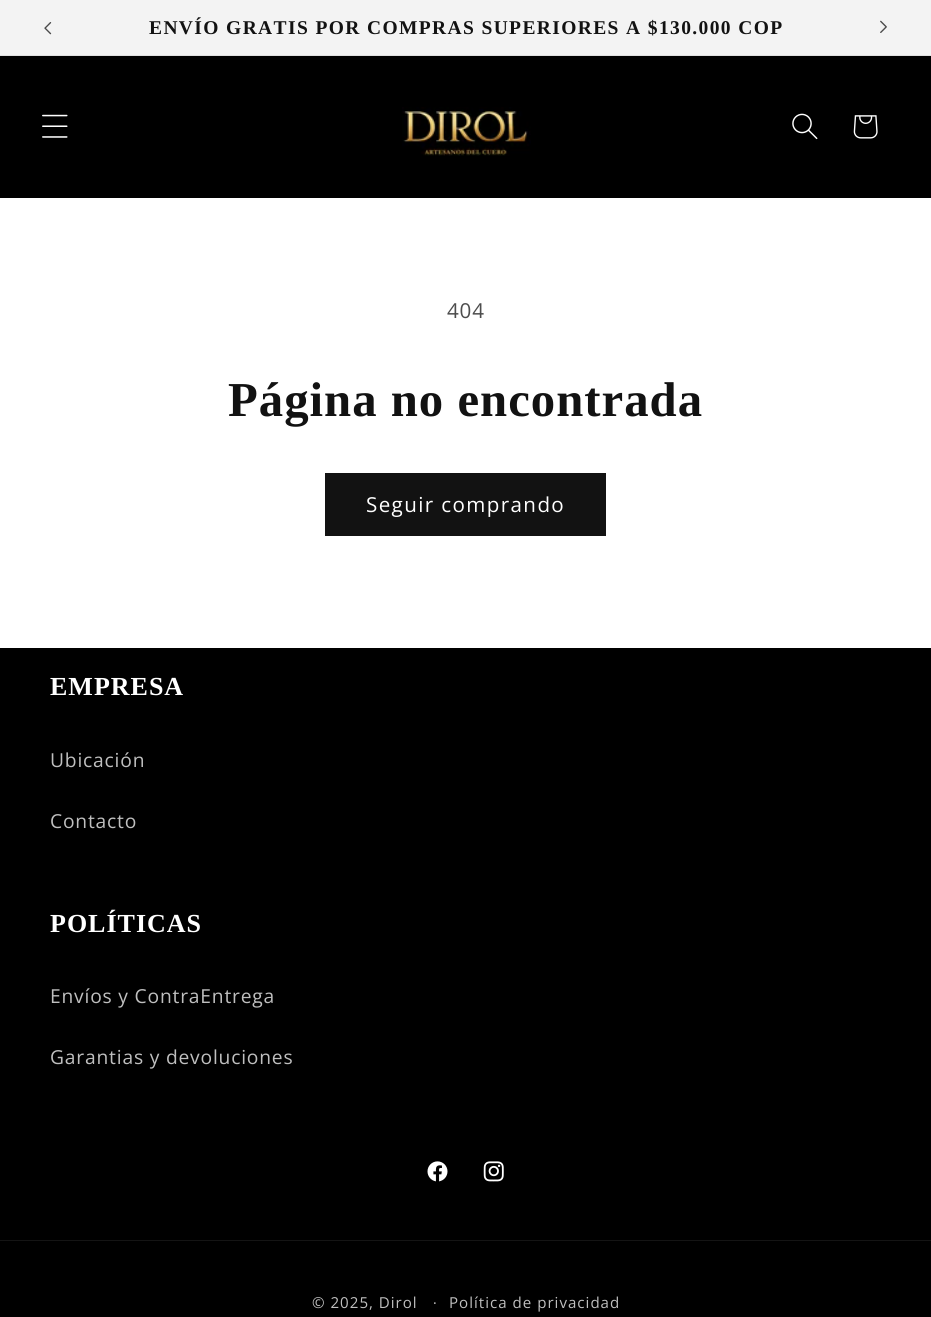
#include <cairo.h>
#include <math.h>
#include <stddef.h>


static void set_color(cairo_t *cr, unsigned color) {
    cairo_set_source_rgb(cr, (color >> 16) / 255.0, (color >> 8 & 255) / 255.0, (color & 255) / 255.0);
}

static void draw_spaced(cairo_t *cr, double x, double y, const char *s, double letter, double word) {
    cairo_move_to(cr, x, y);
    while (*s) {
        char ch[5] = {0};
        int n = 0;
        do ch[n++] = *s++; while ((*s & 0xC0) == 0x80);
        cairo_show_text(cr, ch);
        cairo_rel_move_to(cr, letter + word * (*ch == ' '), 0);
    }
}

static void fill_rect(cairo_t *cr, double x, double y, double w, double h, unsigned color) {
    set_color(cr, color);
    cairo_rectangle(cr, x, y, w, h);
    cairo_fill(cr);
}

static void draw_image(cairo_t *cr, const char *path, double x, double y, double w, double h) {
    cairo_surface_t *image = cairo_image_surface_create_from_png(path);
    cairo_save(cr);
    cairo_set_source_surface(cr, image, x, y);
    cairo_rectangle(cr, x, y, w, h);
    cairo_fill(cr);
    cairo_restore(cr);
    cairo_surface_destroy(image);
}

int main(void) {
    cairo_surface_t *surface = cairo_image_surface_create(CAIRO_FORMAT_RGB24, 931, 1317);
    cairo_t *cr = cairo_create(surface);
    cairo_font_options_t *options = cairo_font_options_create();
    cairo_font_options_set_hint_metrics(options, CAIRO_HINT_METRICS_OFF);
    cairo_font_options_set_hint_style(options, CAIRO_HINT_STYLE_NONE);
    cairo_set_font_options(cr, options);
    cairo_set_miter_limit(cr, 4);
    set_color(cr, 0xFFFFFF);
    cairo_paint(cr);
    fill_rect(cr, 0, 0, 931, 55, 0xF3F3F3);
    fill_rect(cr, 0, 55, 931, 1, 0xE1E1E1);
    draw_image(cr, "assets/img1.png", 44, 22, 8, 13);
    cairo_select_font_face(cr, "Liberation Serif", CAIRO_FONT_SLANT_NORMAL, CAIRO_FONT_WEIGHT_BOLD);
    cairo_set_font_size(cr, 19.5);
    set_color(cr, 0x121212);
    draw_spaced(cr, 149, 34, "ENVÍO GRATIS POR COMPRAS SUPERIORES A $130.000 COP", 1.38, 0);
    draw_image(cr, "assets/img2.png", 880, 20, 7, 13);
    fill_rect(cr, 0, 56, 931, 142, 0x000000);
    draw_image(cr, "assets/img3.png", 42, 114, 26, 24);
    draw_image(cr, "assets/img4.png", 402, 107, 129, 49);
    draw_image(cr, "assets/img5.png", 792, 113, 26, 27);
    draw_image(cr, "assets/img6.png", 853, 115, 25, 24);
    cairo_select_font_face(cr, "Open Sans", CAIRO_FONT_SLANT_NORMAL, CAIRO_FONT_WEIGHT_NORMAL);
    cairo_set_font_size(cr, 20.6);
    set_color(cr, 0x4D4D4D);
    draw_spaced(cr, 447, 318, "404", 0.8, 0);
    cairo_select_font_face(cr, "Liberation Serif", CAIRO_FONT_SLANT_NORMAL, CAIRO_FONT_WEIGHT_BOLD);
    cairo_set_font_size(cr, 48.75);
    set_color(cr, 0x121212);
    draw_spaced(cr, 228, 416, "Página no encontrada", 1, 0);
    fill_rect(cr, 325, 473, 281, 63, 0x121212);
    cairo_select_font_face(cr, "Open Sans", CAIRO_FONT_SLANT_NORMAL, CAIRO_FONT_WEIGHT_NORMAL);
    cairo_set_font_size(cr, 20.6);
    set_color(cr, 0xFFFFFF);
    draw_spaced(cr, 366, 512, "Seguir comprando", 1.38, 0);
    fill_rect(cr, 0, 648, 931, 669, 0x000000);
    cairo_select_font_face(cr, "Liberation Serif", CAIRO_FONT_SLANT_NORMAL, CAIRO_FONT_WEIGHT_BOLD);
    cairo_set_font_size(cr, 26);
    set_color(cr, 0xFFFFFF);
    draw_spaced(cr, 50, 695, "EMPRESA", 1, 0);
    cairo_select_font_face(cr, "Open Sans", CAIRO_FONT_SLANT_NORMAL, CAIRO_FONT_WEIGHT_NORMAL);
    cairo_set_font_size(cr, 19.25);
    set_color(cr, 0xBFBFBF);
    draw_spaced(cr, 50, 767, "Ubicación", 0.8, 0);
    draw_spaced(cr, 50, 828, "Contacto", 0.8, 0);
    cairo_select_font_face(cr, "Liberation Serif", CAIRO_FONT_SLANT_NORMAL, CAIRO_FONT_WEIGHT_BOLD);
    cairo_set_font_size(cr, 26);
    set_color(cr, 0xFFFFFF);
    draw_spaced(cr, 50, 932, "POLÍTICAS", 1, 0);
    cairo_select_font_face(cr, "Open Sans", CAIRO_FONT_SLANT_NORMAL, CAIRO_FONT_WEIGHT_NORMAL);
    cairo_set_font_size(cr, 19.25);
    set_color(cr, 0xBFBFBF);
    draw_spaced(cr, 50, 1003, "Envíos y ContraEntrega", 0.8, 0);
    draw_spaced(cr, 50, 1064, "Garantias y devoluciones", 0.8, 0);
    draw_image(cr, "assets/img7.png", 427, 1161, 21, 21);
    draw_image(cr, "assets/img8.png", 483, 1161, 21, 21);
    fill_rect(cr, 0, 1240, 931, 1, 0x141414);
    cairo_set_font_size(cr, 15.1);
    set_color(cr, 0xBFBFBF);
    draw_spaced(cr, 312, 1308, "© 2025, Dirol", 1, 0);
    cairo_set_font_size(cr, 14);
    draw_spaced(cr, 433, 1308, "·", 1, 0);
    cairo_set_font_size(cr, 15.1);
    draw_spaced(cr, 449, 1308, "Política de privacidad", 1, 0);
    cairo_surface_write_to_png(surface, "output.png");
    cairo_font_options_destroy(options);
    cairo_destroy(cr);
    cairo_surface_destroy(surface);
    return 0;
}
